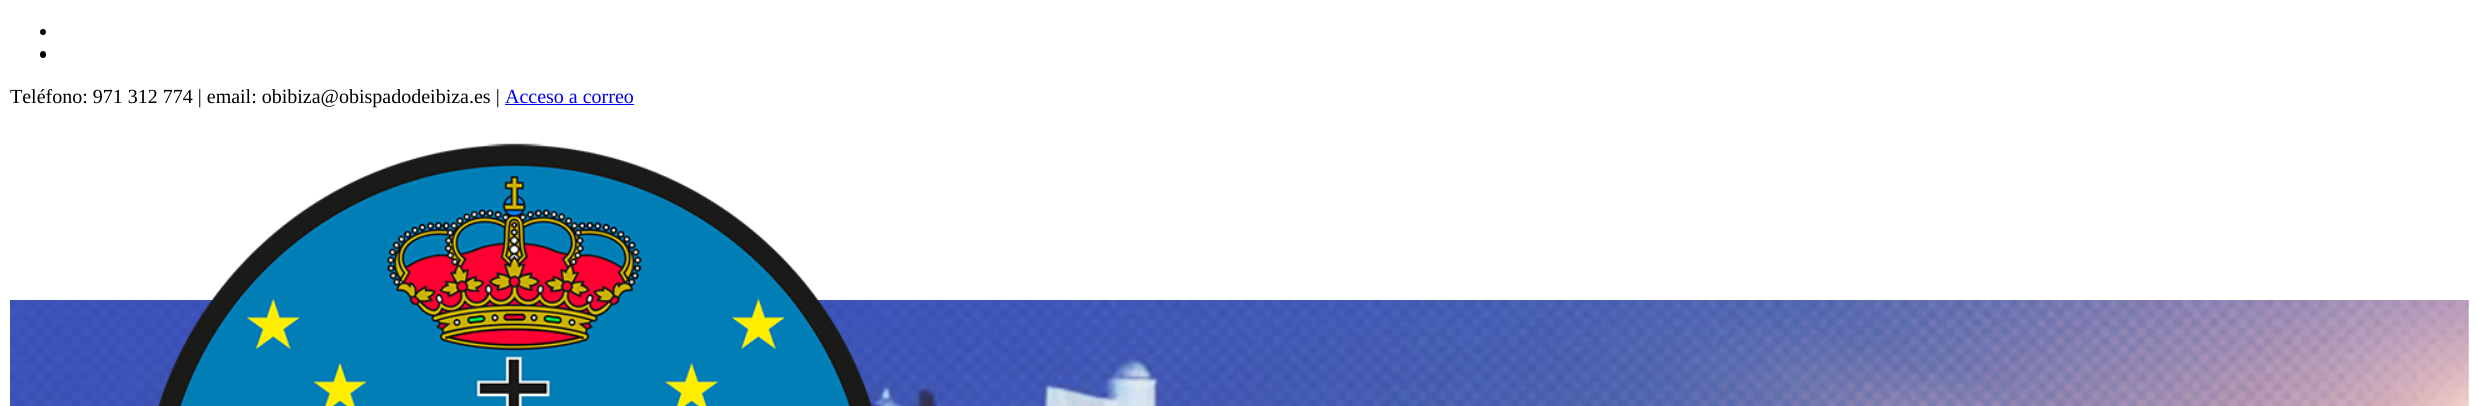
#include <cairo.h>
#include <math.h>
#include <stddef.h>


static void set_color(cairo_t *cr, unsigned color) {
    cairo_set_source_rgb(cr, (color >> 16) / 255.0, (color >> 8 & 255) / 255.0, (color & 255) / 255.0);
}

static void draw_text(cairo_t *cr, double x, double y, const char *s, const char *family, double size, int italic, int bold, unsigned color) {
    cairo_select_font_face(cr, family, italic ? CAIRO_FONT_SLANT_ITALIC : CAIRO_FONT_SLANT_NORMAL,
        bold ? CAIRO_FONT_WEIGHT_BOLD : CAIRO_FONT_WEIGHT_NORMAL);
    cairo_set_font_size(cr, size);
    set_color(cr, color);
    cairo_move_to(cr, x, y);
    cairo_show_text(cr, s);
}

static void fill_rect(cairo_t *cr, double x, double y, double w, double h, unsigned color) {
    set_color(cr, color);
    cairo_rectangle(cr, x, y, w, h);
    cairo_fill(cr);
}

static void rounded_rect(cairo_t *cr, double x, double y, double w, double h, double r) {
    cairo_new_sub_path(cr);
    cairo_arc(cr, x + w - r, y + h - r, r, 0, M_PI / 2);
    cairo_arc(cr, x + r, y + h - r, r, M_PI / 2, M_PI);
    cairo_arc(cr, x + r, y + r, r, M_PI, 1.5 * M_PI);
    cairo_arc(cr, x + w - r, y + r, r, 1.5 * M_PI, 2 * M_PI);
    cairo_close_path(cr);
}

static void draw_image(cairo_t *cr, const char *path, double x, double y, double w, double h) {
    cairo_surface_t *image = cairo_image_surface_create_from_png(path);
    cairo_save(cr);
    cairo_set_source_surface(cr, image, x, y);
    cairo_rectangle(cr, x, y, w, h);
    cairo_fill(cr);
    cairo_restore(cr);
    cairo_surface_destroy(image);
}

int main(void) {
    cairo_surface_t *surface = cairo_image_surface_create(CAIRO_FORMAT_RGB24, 2478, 406);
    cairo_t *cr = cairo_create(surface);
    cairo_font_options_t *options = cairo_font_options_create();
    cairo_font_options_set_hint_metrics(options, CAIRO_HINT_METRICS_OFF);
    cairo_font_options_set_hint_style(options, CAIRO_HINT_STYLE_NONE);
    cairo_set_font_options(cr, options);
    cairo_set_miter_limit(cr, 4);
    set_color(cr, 0xFFFFFF);
    cairo_paint(cr);
    set_color(cr, 0x000000);
    cairo_arc(cr, 43, 32, 3, 0, 2 * M_PI);
    cairo_fill(cr);
    rounded_rect(cr, 40, 51, 6, 7, 3);
    cairo_fill(cr);
    draw_text(cr, 10, 103, "Teléfono: 971 312 774 | email: obibiza@obispadodeibiza.es |", "Liberation Serif", 20, 0, 0, 0x000000);
    draw_text(cr, 505, 103, "Acceso a correo", "Liberation Serif", 20, 0, 0, 0x0000EE);
    fill_rect(cr, 505, 104, 129, 1, 0x0000EE);
    draw_image(cr, "assets/img2.png", 10, 300, 2459, 106);
    draw_image(cr, "assets/img1.png", 157, 143, 716, 263);
    cairo_surface_write_to_png(surface, "output.png");
    cairo_font_options_destroy(options);
    cairo_destroy(cr);
    cairo_surface_destroy(surface);
    return 0;
}
